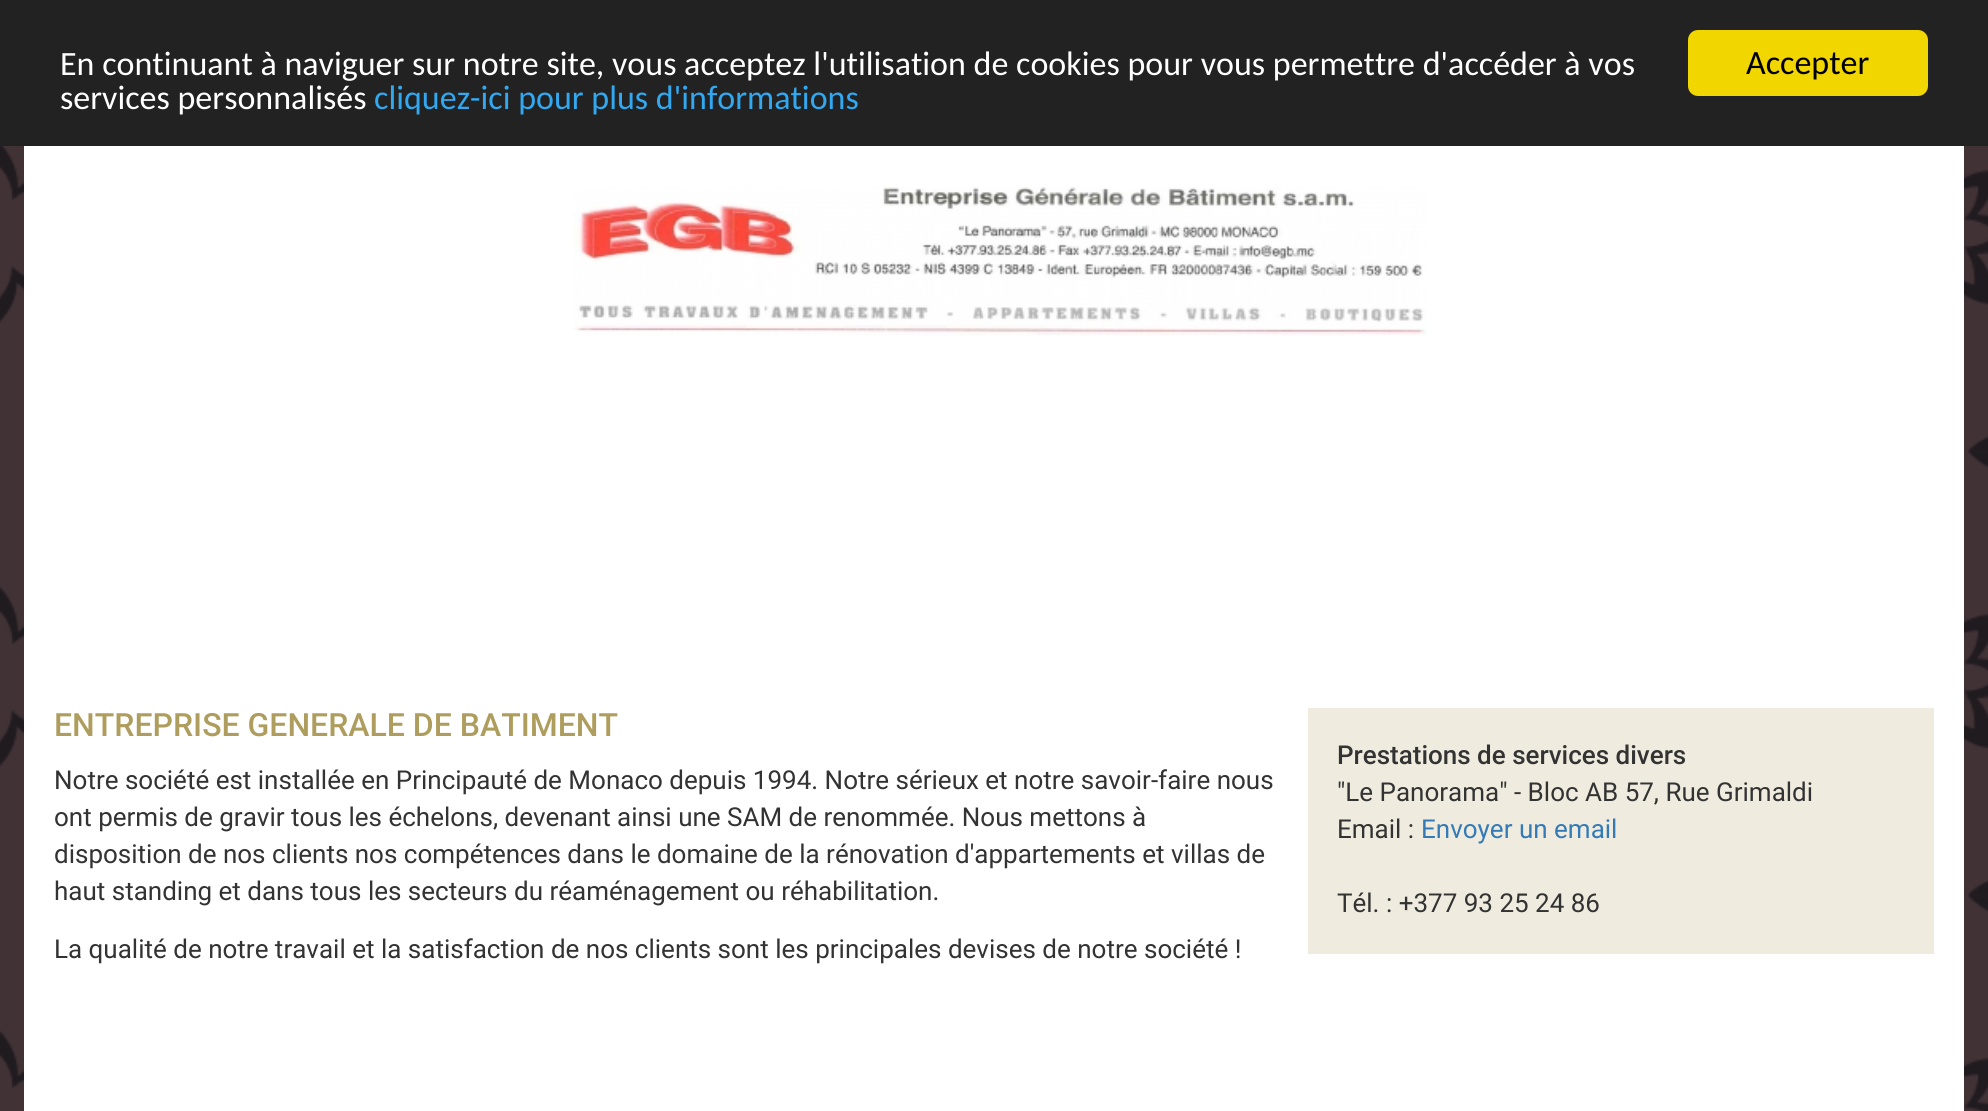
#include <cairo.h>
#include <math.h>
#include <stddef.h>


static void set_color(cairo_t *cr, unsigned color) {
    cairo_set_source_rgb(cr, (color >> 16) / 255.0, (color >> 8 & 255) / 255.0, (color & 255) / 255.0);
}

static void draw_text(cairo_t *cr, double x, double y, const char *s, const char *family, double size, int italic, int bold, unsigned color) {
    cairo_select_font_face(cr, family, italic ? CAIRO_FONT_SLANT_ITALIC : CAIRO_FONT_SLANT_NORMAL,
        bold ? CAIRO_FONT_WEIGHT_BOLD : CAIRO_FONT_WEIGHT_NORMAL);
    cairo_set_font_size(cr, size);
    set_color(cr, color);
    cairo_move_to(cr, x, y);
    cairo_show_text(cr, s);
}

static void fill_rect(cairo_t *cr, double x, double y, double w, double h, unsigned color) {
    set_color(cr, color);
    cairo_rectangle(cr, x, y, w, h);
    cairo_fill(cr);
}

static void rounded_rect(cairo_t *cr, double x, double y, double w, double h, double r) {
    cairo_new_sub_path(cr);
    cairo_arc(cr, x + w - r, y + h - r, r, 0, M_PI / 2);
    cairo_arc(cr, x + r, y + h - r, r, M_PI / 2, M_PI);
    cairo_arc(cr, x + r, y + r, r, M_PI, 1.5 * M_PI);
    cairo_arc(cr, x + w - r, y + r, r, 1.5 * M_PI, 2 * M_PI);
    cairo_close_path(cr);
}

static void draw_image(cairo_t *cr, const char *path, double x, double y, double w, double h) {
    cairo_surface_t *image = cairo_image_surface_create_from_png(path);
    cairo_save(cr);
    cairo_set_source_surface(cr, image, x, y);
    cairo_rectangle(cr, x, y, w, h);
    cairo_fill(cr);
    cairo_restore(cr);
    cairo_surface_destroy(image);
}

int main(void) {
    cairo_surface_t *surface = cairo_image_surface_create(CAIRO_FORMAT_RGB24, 1988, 1111);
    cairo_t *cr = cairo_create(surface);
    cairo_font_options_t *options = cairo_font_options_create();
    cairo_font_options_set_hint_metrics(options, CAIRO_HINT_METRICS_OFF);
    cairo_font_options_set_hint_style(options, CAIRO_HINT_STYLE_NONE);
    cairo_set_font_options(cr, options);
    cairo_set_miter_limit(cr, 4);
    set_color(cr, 0x413236);
    cairo_paint(cr);
    draw_image(cr, "assets/img1.png", 0, 146, 1988, 965);
    fill_rect(cr, 0, 0, 1988, 146, 0x222222);
    draw_text(cr, 60, 75, "En continuant à naviguer sur notre site, vous acceptez l'utilisation de cookies pour vous permettre d'accéder à vos", "Carlito", 34, 0, 0, 0xFFFFFF);
    draw_text(cr, 60, 109, "services personnalisés", "Carlito", 34, 0, 0, 0xFFFFFF);
    draw_text(cr, 374, 109, "cliquez-ici pour plus d'informations", "Carlito", 34, 0, 0, 0x31A8F0);
    set_color(cr, 0xF1D600);
    rounded_rect(cr, 1688, 30, 240, 66, 10);
    cairo_fill(cr);
    draw_text(cr, 1746, 74, "Accepter", "Carlito", 34, 0, 0, 0x000000);
    fill_rect(cr, 24, 146, 1940, 965, 0xFFFFFF);
    draw_image(cr, "assets/img2.png", 573, 187, 854, 149);
    draw_text(cr, 54, 736, "ENTREPRISE GENERALE DE BATIMENT", "Roboto Medium", 32, 0, 0, 0xAE9D5C);
    draw_text(cr, 54, 789, "Notre société est installée en Principauté de Monaco depuis 1994. Notre sérieux et notre savoir-faire nous", "Roboto", 26, 0, 0, 0x333333);
    draw_text(cr, 54, 826, "ont permis de gravir tous les échelons, devenant ainsi une SAM de renommée. Nous mettons à", "Roboto", 26, 0, 0, 0x333333);
    draw_text(cr, 54, 863, "disposition de nos clients nos compétences dans le domaine de la rénovation d'appartements et villas de", "Roboto", 26, 0, 0, 0x333333);
    draw_text(cr, 54, 900, "haut standing et dans tous les secteurs du réaménagement ou réhabilitation.", "Roboto", 26, 0, 0, 0x333333);
    draw_text(cr, 54, 958, "La qualité de notre travail et la satisfaction de nos clients sont les principales devises de notre société !", "Roboto", 26, 0, 0, 0x333333);
    fill_rect(cr, 1308, 708, 626, 246, 0xEFECDF);
    draw_text(cr, 1337, 764, "Prestations de services divers", "Roboto Medium", 26, 0, 0, 0x333333);
    draw_text(cr, 1337, 801, "\"Le Panorama\" - Bloc AB 57, Rue Grimaldi", "Roboto", 26, 0, 0, 0x333333);
    draw_text(cr, 1337, 838, "Email :", "Roboto", 26, 0, 0, 0x333333);
    draw_text(cr, 1421, 838, "Envoyer un email", "Roboto", 26, 0, 0, 0x337AB7);
    draw_text(cr, 1337, 912, "Tél. : +377 93 25 24 86", "Roboto", 26, 0, 0, 0x333333);
    cairo_surface_write_to_png(surface, "output.png");
    cairo_font_options_destroy(options);
    cairo_destroy(cr);
    cairo_surface_destroy(surface);
    return 0;
}
